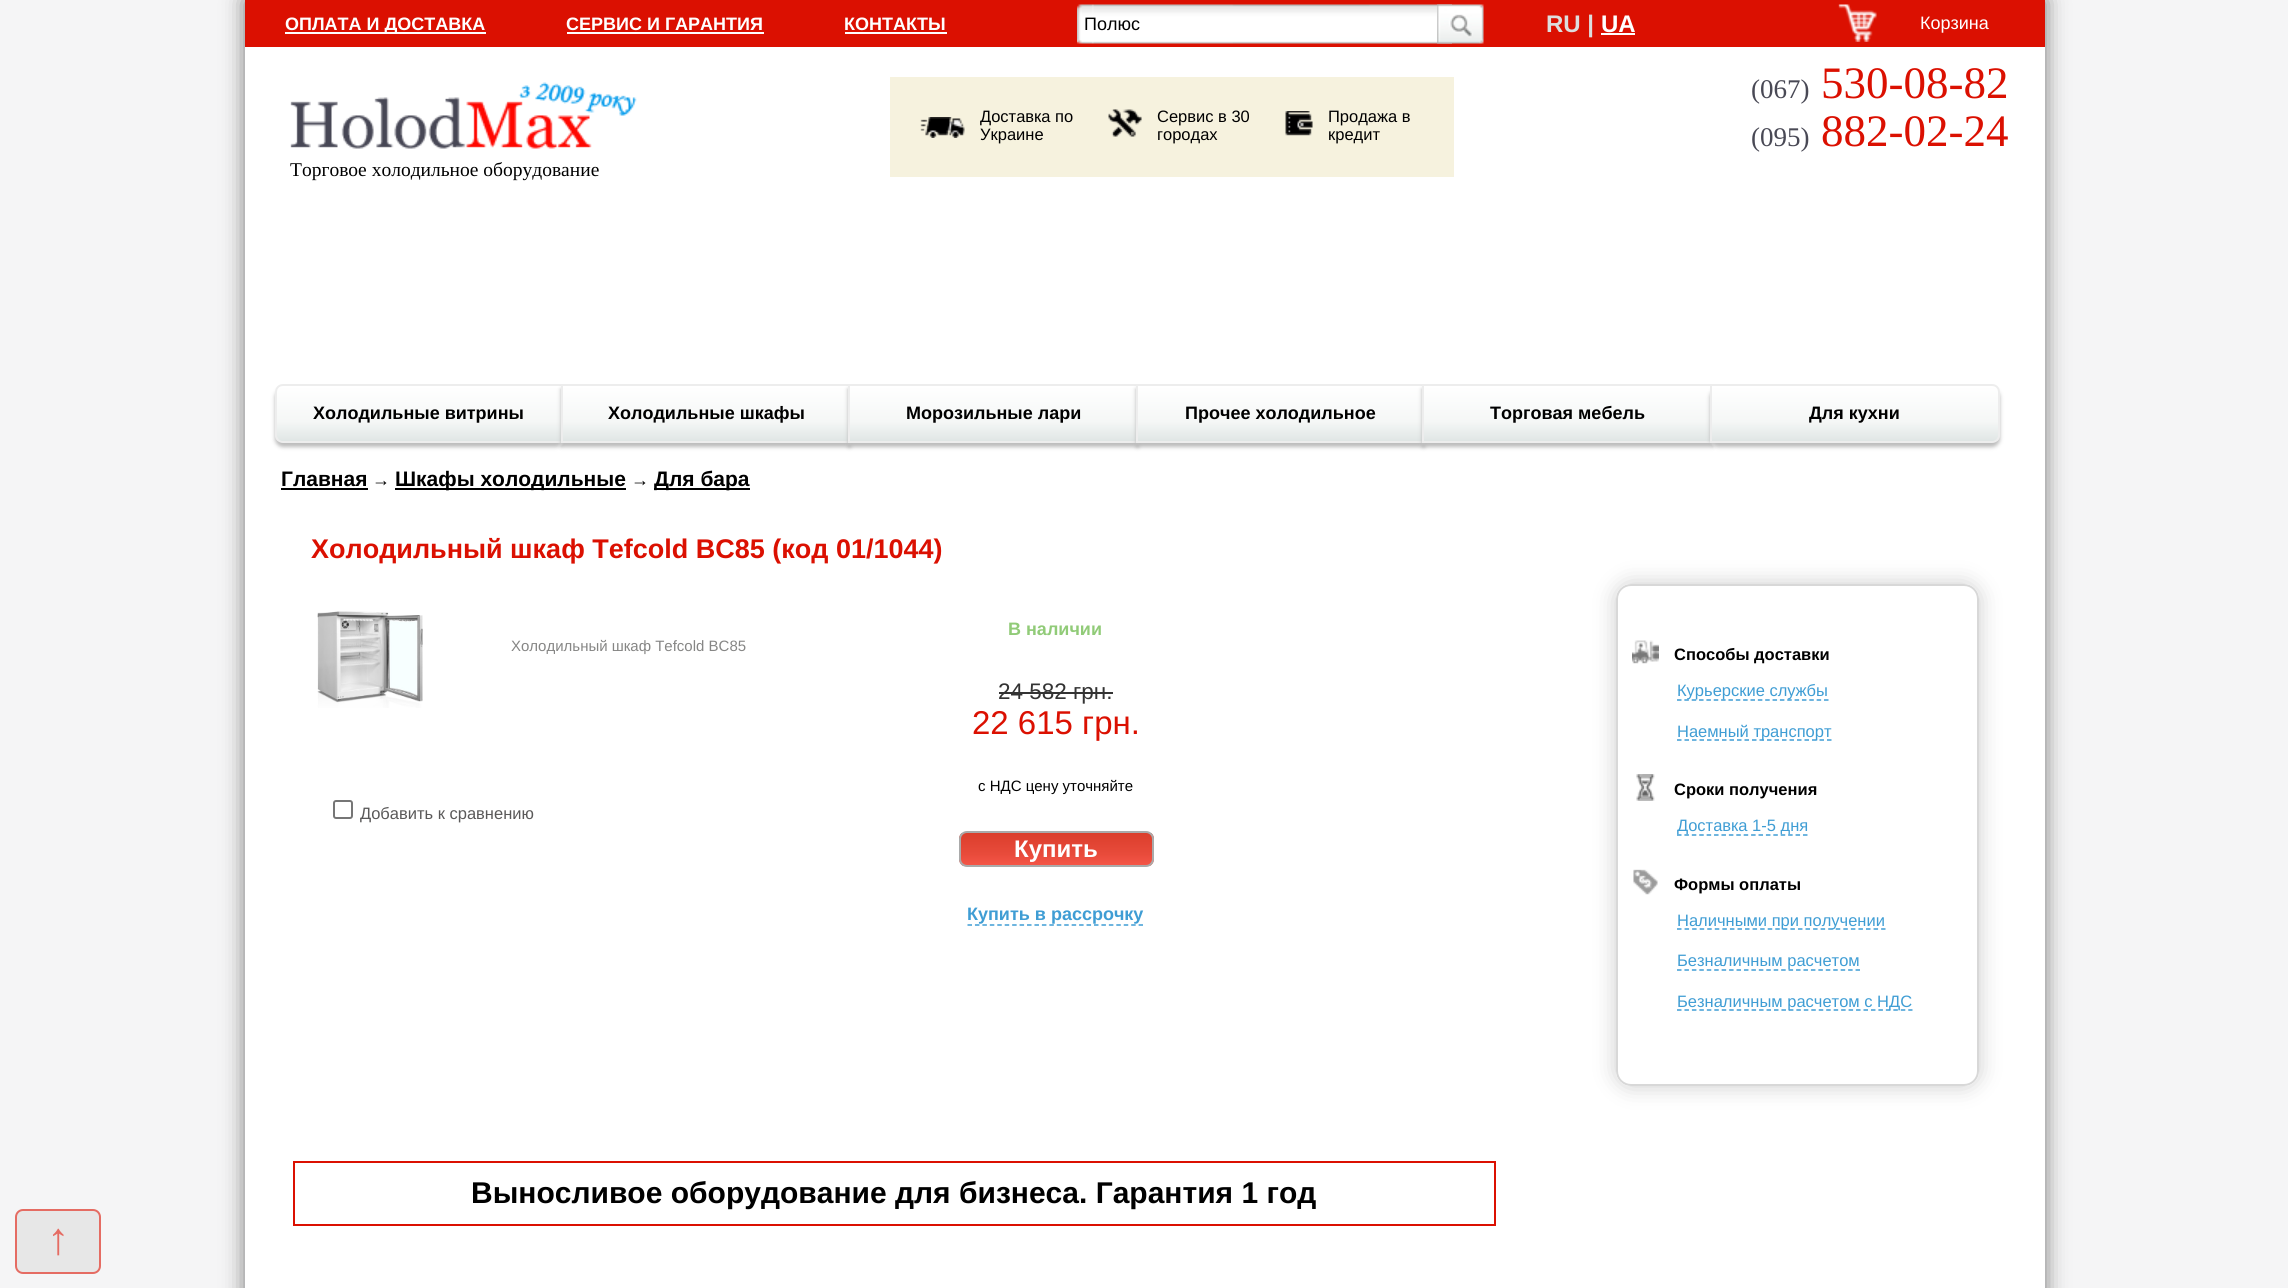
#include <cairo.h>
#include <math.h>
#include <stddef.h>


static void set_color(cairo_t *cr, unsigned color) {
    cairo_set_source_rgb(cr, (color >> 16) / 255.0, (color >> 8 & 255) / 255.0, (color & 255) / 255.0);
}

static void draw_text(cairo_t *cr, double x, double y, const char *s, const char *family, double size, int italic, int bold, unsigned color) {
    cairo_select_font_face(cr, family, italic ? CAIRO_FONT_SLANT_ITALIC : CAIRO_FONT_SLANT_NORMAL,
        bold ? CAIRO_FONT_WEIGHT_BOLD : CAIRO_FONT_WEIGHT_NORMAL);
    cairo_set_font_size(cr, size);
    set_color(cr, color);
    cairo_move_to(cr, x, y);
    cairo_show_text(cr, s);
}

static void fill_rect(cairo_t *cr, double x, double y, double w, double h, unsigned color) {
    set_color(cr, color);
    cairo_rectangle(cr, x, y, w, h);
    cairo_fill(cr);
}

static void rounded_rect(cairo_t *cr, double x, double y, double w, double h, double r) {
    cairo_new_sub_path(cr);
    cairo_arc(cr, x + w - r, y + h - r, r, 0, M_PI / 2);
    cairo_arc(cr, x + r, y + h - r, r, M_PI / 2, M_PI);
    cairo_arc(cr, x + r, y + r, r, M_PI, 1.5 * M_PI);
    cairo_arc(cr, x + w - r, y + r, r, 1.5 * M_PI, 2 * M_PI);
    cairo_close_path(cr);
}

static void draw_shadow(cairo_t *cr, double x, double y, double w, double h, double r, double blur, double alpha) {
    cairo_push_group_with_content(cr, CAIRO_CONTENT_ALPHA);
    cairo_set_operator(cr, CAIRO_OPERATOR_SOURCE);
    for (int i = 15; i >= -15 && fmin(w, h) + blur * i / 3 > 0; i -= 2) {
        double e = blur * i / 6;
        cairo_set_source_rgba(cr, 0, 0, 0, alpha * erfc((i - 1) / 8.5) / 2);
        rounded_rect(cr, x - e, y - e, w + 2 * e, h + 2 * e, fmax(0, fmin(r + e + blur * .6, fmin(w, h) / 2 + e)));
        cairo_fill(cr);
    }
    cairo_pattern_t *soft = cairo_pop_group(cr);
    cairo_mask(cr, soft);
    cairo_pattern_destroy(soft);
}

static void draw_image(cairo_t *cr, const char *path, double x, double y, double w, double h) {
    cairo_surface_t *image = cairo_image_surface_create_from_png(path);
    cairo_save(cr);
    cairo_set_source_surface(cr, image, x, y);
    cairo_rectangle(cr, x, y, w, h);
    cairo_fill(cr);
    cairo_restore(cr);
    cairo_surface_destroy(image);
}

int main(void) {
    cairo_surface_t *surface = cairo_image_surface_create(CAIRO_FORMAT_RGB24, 2288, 1288);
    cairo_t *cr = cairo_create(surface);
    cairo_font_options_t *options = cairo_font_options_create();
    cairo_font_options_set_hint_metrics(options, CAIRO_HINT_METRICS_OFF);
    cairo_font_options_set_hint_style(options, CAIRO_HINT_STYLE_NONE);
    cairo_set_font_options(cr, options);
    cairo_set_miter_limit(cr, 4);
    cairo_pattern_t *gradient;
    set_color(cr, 0xF5F5F6);
    cairo_paint(cr);
    set_color(cr, 0x777777);
    draw_shadow(cr, 245, 0, 1800, 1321, 0, 11, 1);
    fill_rect(cr, 245, 47, 1800, 1241, 0xFFFFFF);
    fill_rect(cr, 245, 0, 1800, 47, 0xDB1001);
    fill_rect(cr, 285, 32, 201, 2, 0xFFFFFF);
    draw_text(cr, 285, 30, "ОПЛАТА И ДОСТАВКА", "Liberation Sans", 18, 0, 1, 0xFFFFFF);
    draw_text(cr, 566, 30, "СЕРВИС И ГАРАНТИЯ", "Liberation Sans", 18, 0, 1, 0xFFFFFF);
    fill_rect(cr, 567, 32, 197, 2, 0xFFFFFF);
    draw_text(cr, 844, 30, "КОНТАКТЫ", "Liberation Sans", 18, 0, 1, 0xFFFFFF);
    fill_rect(cr, 845, 32, 102, 2, 0xFFFFFF);
    draw_image(cr, "assets/img1.png", 1077, 4, 375, 40);
    draw_text(cr, 1084, 30, "Полюс", "Liberation Sans", 18, 0, 0, 0x000000);
    draw_image(cr, "assets/img2.png", 1437, 4, 47, 40);
    draw_text(cr, 1546, 32, "RU |", "Liberation Sans", 24, 0, 1, 0xDDDDDD);
    draw_text(cr, 1601, 32, "UA", "Liberation Sans", 24, 0, 1, 0xFFFFFF);
    fill_rect(cr, 1601, 33, 34, 2, 0xFFFFFF);
    draw_image(cr, "assets/img3.png", 1838, 4, 39, 38);
    draw_text(cr, 1920, 29, "Корзина", "Liberation Sans", 18, 0, 0, 0xFFFFFF);
    fill_rect(cr, 890, 77, 564, 100, 0xF6F2DE);
    draw_image(cr, "assets/img4.png", 920, 117, 45, 21);
    draw_text(cr, 980, 122, "Доставка по", "Liberation Sans", 16.5, 0, 0, 0x000000);
    draw_text(cr, 980, 140, "Украине", "Liberation Sans", 16.5, 0, 0, 0x000000);
    draw_image(cr, "assets/img5.png", 1108, 109, 34, 28);
    draw_text(cr, 1157, 122, "Сервис в 30", "Liberation Sans", 16.5, 0, 0, 0x000000);
    draw_text(cr, 1157, 140, "городах", "Liberation Sans", 16.5, 0, 0, 0x000000);
    draw_image(cr, "assets/img6.png", 1285, 111, 28, 25);
    draw_text(cr, 1328, 122, "Продажа в", "Liberation Sans", 16.5, 0, 0, 0x000000);
    draw_text(cr, 1328, 140, "кредит", "Liberation Sans", 16.5, 0, 0, 0x000000);
    draw_text(cr, 1751, 98, "(067)", "Liberation Serif", 27, 0, 0, 0x494955);
    draw_text(cr, 1821, 98, "530-08-82", "Liberation Serif", 45, 0, 0, 0xDB1001);
    draw_text(cr, 1751, 146, "(095)", "Liberation Serif", 27, 0, 0, 0x494955);
    draw_text(cr, 1821, 146, "882-02-24", "Liberation Serif", 45, 0, 0, 0xDB1001);
    draw_image(cr, "assets/img7.png", 290, 82, 347, 67);
    draw_text(cr, 290, 176, "Торговое холодильное оборудование", "Liberation Serif", 19.5, 0, 0, 0x000000);
    set_color(cr, 0xBBBBBB);
    draw_shadow(cr, 275, 389, 289, 58, 8, 2, 1);
    cairo_save(cr);
    cairo_new_path(cr);
    cairo_move_to(cr, 283, 384);
    cairo_line_to(cr, 564, 384);
    cairo_line_to(cr, 564, 443);
    cairo_line_to(cr, 283, 443);
    cairo_curve_to(cr, 278.5, 443, 275, 439.5, 275, 435);
    cairo_line_to(cr, 275, 392);
    cairo_curve_to(cr, 275, 387.5, 278.5, 384, 283, 384);
    cairo_close_path(cr);
    cairo_clip(cr);
    gradient = cairo_pattern_create_linear(419, 441, 419, 386);
    cairo_pattern_add_color_stop_rgba(gradient, 0, 0.878, 0.902, 0.898, 1);
    cairo_pattern_add_color_stop_rgba(gradient, 0.36, 0.961, 0.969, 0.965, 1);
    cairo_pattern_add_color_stop_rgba(gradient, 1, 1, 1, 1, 1);
    cairo_set_source(cr, gradient);
    cairo_pattern_destroy(gradient);
    cairo_rectangle(cr, 275, 386, 286, 55);
    cairo_fill(cr);
    cairo_restore(cr);
    cairo_new_path(cr);
    cairo_move_to(cr, 283, 385);
    cairo_line_to(cr, 563, 385);
    cairo_line_to(cr, 563, 442);
    cairo_line_to(cr, 283, 442);
    cairo_curve_to(cr, 279, 442, 276, 439, 276, 435);
    cairo_line_to(cr, 276, 392);
    cairo_curve_to(cr, 276, 388, 279, 385, 283, 385);
    cairo_close_path(cr);
    set_color(cr, 0xEDEDED);
    cairo_stroke(cr);
    draw_text(cr, 313, 419, "Холодильные витрины", "Liberation Sans", 18, 0, 1, 0x000000);
    set_color(cr, 0xBBBBBB);
    draw_shadow(cr, 561, 389, 290, 58, 0, 2, 1);
    gradient = cairo_pattern_create_linear(706, 441, 706, 386);
    cairo_pattern_add_color_stop_rgba(gradient, 0, 0.878, 0.902, 0.898, 1);
    cairo_pattern_add_color_stop_rgba(gradient, 0.36, 0.961, 0.969, 0.965, 1);
    cairo_pattern_add_color_stop_rgba(gradient, 1, 1, 1, 1, 1);
    cairo_set_source(cr, gradient);
    cairo_pattern_destroy(gradient);
    cairo_rectangle(cr, 563, 386, 285, 55);
    cairo_fill(cr);
    cairo_rectangle(cr, 562, 385, 288, 57);
    set_color(cr, 0xEDEDED);
    cairo_stroke(cr);
    draw_text(cr, 608, 419, "Холодильные шкафы", "Liberation Sans", 18, 0, 1, 0x000000);
    set_color(cr, 0xBBBBBB);
    draw_shadow(cr, 848, 389, 291, 58, 0, 2, 1);
    gradient = cairo_pattern_create_linear(993, 441, 993, 386);
    cairo_pattern_add_color_stop_rgba(gradient, 0, 0.878, 0.902, 0.898, 1);
    cairo_pattern_add_color_stop_rgba(gradient, 0.36, 0.961, 0.969, 0.965, 1);
    cairo_pattern_add_color_stop_rgba(gradient, 1, 1, 1, 1, 1);
    cairo_set_source(cr, gradient);
    cairo_pattern_destroy(gradient);
    cairo_rectangle(cr, 850, 386, 286, 55);
    cairo_fill(cr);
    cairo_rectangle(cr, 849, 385, 289, 57);
    set_color(cr, 0xEDEDED);
    cairo_stroke(cr);
    draw_text(cr, 906, 419, "Морозильные лари", "Liberation Sans", 18, 0, 1, 0x000000);
    set_color(cr, 0xBBBBBB);
    draw_shadow(cr, 1136, 389, 289, 58, 0, 2, 1);
    gradient = cairo_pattern_create_linear(1280, 441, 1280, 386);
    cairo_pattern_add_color_stop_rgba(gradient, 0, 0.878, 0.902, 0.898, 1);
    cairo_pattern_add_color_stop_rgba(gradient, 0.36, 0.961, 0.969, 0.965, 1);
    cairo_pattern_add_color_stop_rgba(gradient, 1, 1, 1, 1, 1);
    cairo_set_source(cr, gradient);
    cairo_pattern_destroy(gradient);
    cairo_rectangle(cr, 1138, 386, 284, 55);
    cairo_fill(cr);
    cairo_rectangle(cr, 1137, 385, 287, 57);
    set_color(cr, 0xEDEDED);
    cairo_stroke(cr);
    draw_text(cr, 1185, 419, "Прочее холодильное", "Liberation Sans", 18, 0, 1, 0x000000);
    set_color(cr, 0xBBBBBB);
    draw_shadow(cr, 1422, 389, 291, 58, 0, 2, 1);
    gradient = cairo_pattern_create_linear(1568, 441, 1568, 386);
    cairo_pattern_add_color_stop_rgba(gradient, 0, 0.878, 0.902, 0.898, 1);
    cairo_pattern_add_color_stop_rgba(gradient, 0.36, 0.961, 0.969, 0.965, 1);
    cairo_pattern_add_color_stop_rgba(gradient, 1, 1, 1, 1, 1);
    cairo_set_source(cr, gradient);
    cairo_pattern_destroy(gradient);
    cairo_rectangle(cr, 1424, 386, 286, 55);
    cairo_fill(cr);
    cairo_rectangle(cr, 1423, 385, 289, 57);
    set_color(cr, 0xEDEDED);
    cairo_stroke(cr);
    draw_text(cr, 1490, 419, "Торговая мебель", "Liberation Sans", 18, 0, 1, 0x000000);
    set_color(cr, 0xBBBBBB);
    draw_shadow(cr, 1710, 389, 290, 58, 8, 2, 1);
    cairo_save(cr);
    cairo_new_path(cr);
    cairo_move_to(cr, 1710, 384);
    cairo_line_to(cr, 1992, 384);
    cairo_curve_to(cr, 1996.5, 384, 2000, 387.5, 2000, 392);
    cairo_line_to(cr, 2000, 435);
    cairo_curve_to(cr, 2000, 439.5, 1996.5, 443, 1992, 443);
    cairo_line_to(cr, 1710, 443);
    cairo_close_path(cr);
    cairo_clip(cr);
    gradient = cairo_pattern_create_linear(1855, 441, 1855, 386);
    cairo_pattern_add_color_stop_rgba(gradient, 0, 0.878, 0.902, 0.898, 1);
    cairo_pattern_add_color_stop_rgba(gradient, 0.36, 0.961, 0.969, 0.965, 1);
    cairo_pattern_add_color_stop_rgba(gradient, 1, 1, 1, 1, 1);
    cairo_set_source(cr, gradient);
    cairo_pattern_destroy(gradient);
    cairo_rectangle(cr, 1712, 386, 288, 55);
    cairo_fill(cr);
    cairo_restore(cr);
    cairo_new_path(cr);
    cairo_move_to(cr, 1711, 385);
    cairo_line_to(cr, 1992, 385);
    cairo_curve_to(cr, 1996, 385, 1999, 388, 1999, 392);
    cairo_line_to(cr, 1999, 435);
    cairo_curve_to(cr, 1999, 439, 1996, 442, 1992, 442);
    cairo_line_to(cr, 1711, 442);
    cairo_close_path(cr);
    set_color(cr, 0xEDEDED);
    cairo_stroke(cr);
    draw_text(cr, 1809, 419, "Для кухни", "Liberation Sans", 18, 0, 1, 0x000000);
    draw_text(cr, 281, 486, "Главная", "Liberation Sans", 21, 0, 1, 0x000000);
    fill_rect(cr, 281, 488, 87, 2, 0x000000);
    draw_text(cr, 372, 486, "→", "Liberation Sans", 18, 0, 0, 0x000000);
    fill_rect(cr, 395, 488, 231, 2, 0x000000);
    draw_text(cr, 395, 486, "Шкафы холодильные", "Liberation Sans", 21, 0, 1, 0x000000);
    draw_text(cr, 631, 486, "→", "Liberation Sans", 18, 0, 0, 0x000000);
    fill_rect(cr, 654, 488, 96, 2, 0x000000);
    draw_text(cr, 654, 486, "Для бара", "Liberation Sans", 21, 0, 1, 0x000000);
    draw_text(cr, 311, 558, "Холодильный шкаф Tefcold BC85 (код 01/1044)", "Liberation Sans", 27, 0, 1, 0xDB1001);
    draw_image(cr, "assets/img8.png", 317, 611, 106, 97);
    draw_text(cr, 511, 651, "Холодильный шкаф Tefcold BC85", "Liberation Sans", 15, 0, 0, 0x868685);
    rounded_rect(cr, 334, 801, 18, 17, 2);
    set_color(cr, 0x767676);
    cairo_stroke(cr);
    draw_text(cr, 360, 819, "Добавить к сравнению", "Liberation Sans", 16.5, 0, 0, 0x5A5959);
    draw_text(cr, 1008, 635, "В наличии", "Liberation Sans", 18, 0, 1, 0x91CB78);
    draw_text(cr, 998, 699, "24 582 грн.", "Liberation Sans", 22.5, 0, 0, 0x333333);
    fill_rect(cr, 999, 692, 114, 2, 0x333333);
    draw_text(cr, 972, 734, "22 615 грн.", "Liberation Sans", 33, 0, 0, 0xDB1001);
    draw_text(cr, 978, 791, "с НДС цену уточняйте", "Liberation Sans", 15, 0, 0, 0x000000);
    cairo_save(cr);
    rounded_rect(cr, 959, 831, 195, 36, 8);
    cairo_clip(cr);
    gradient = cairo_pattern_create_linear(1056, 866, 1056, 833);
    cairo_pattern_add_color_stop_rgba(gradient, 0, 0.961, 0.337, 0.282, 1);
    cairo_pattern_add_color_stop_rgba(gradient, 0.36, 0.91, 0.294, 0.231, 1);
    cairo_pattern_add_color_stop_rgba(gradient, 1, 0.859, 0.243, 0.173, 1);
    cairo_set_source(cr, gradient);
    cairo_pattern_destroy(gradient);
    cairo_rectangle(cr, 959, 833, 195, 33);
    cairo_fill(cr);
    cairo_restore(cr);
    rounded_rect(cr, 960, 832, 193, 34, 7);
    set_color(cr, 0xAAAAAA);
    cairo_stroke(cr);
    draw_text(cr, 1014, 857, "Купить", "Liberation Sans", 24, 0, 1, 0xFFFFFF);
    draw_text(cr, 967, 920, "Купить в рассрочку", "Liberation Sans", 18, 0, 1, 0x3F9DD4);
    cairo_new_path(cr);
    cairo_move_to(cr, 967.5, 925);
    cairo_line_to(cr, 1143, 925);
    cairo_set_line_width(cr, 1.5);
    cairo_set_dash(cr, (double[]){4.5, 2.94}, 2, 0);
    cairo_stroke(cr);
    cairo_save(cr);
    cairo_set_fill_rule(cr, CAIRO_FILL_RULE_EVEN_ODD);
    cairo_new_path(cr);
    cairo_move_to(cr, 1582, 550);
    cairo_line_to(cr, 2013, 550);
    cairo_line_to(cr, 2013, 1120);
    cairo_line_to(cr, 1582, 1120);
    cairo_close_path(cr);
    cairo_move_to(cr, 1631, 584);
    cairo_line_to(cr, 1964, 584);
    cairo_curve_to(cr, 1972.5, 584, 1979, 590.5, 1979, 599);
    cairo_line_to(cr, 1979, 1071);
    cairo_curve_to(cr, 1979, 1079.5, 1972.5, 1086, 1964, 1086);
    cairo_line_to(cr, 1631, 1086);
    cairo_curve_to(cr, 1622.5, 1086, 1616, 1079.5, 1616, 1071);
    cairo_line_to(cr, 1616, 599);
    cairo_curve_to(cr, 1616, 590.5, 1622.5, 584, 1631, 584);
    cairo_close_path(cr);
    cairo_clip(cr);
    set_color(cr, 0xCCCCCC);
    draw_shadow(cr, 1616, 584, 363, 502, 15, 11, 1);
    cairo_restore(cr);
    rounded_rect(cr, 1617, 585, 361, 500, 14);
    set_color(cr, 0xD8D8D8);
    cairo_set_line_width(cr, 2);
    cairo_set_dash(cr, NULL, 0, 0);
    cairo_stroke(cr);
    draw_image(cr, "assets/img9.png", 1632, 640, 27, 24);
    draw_text(cr, 1674, 660, "Способы доставки", "Liberation Sans", 16.5, 0, 1, 0x000000);
    cairo_new_path(cr);
    cairo_move_to(cr, 1677, 700);
    cairo_line_to(cr, 1828.5, 700);
    set_color(cr, 0x3F9DD4);
    cairo_set_line_width(cr, 1.5);
    cairo_set_dash(cr, (double[]){4.5, 2.85}, 2, 0);
    cairo_stroke(cr);
    draw_text(cr, 1677, 696, "Курьерские службы", "Liberation Sans", 16.5, 0, 0, 0x3F9DD4);
    cairo_new_path(cr);
    cairo_move_to(cr, 1677, 740);
    cairo_line_to(cr, 1831.5, 740);
    cairo_set_dash(cr, (double[]){4.5, 3}, 2, 0);
    cairo_stroke(cr);
    draw_text(cr, 1677, 737, "Наемный транспорт", "Liberation Sans", 16.5, 0, 0, 0x3F9DD4);
    draw_image(cr, "assets/img10.png", 1636, 774, 19, 27);
    draw_text(cr, 1674, 795, "Сроки получения", "Liberation Sans", 16.5, 0, 1, 0x000000);
    cairo_new_path(cr);
    cairo_move_to(cr, 1677, 835);
    cairo_line_to(cr, 1807.5, 835);
    set_color(cr, 0x3F9DD4);
    cairo_set_dash(cr, (double[]){4.5, 2.91}, 2, 0);
    cairo_stroke(cr);
    draw_text(cr, 1677, 831, "Доставка 1-5 дня", "Liberation Sans", 16.5, 0, 0, 0x3F9DD4);
    draw_image(cr, "assets/img11.png", 1633, 869, 25, 26);
    draw_text(cr, 1674, 890, "Формы оплаты", "Liberation Sans", 16.5, 0, 1, 0x000000);
    cairo_new_path(cr);
    cairo_move_to(cr, 1677, 929);
    cairo_line_to(cr, 1885.5, 929);
    set_color(cr, 0x3F9DD4);
    cairo_set_dash(cr, (double[]){4.5, 3.06}, 2, 0);
    cairo_stroke(cr);
    draw_text(cr, 1677, 926, "Наличными при получении", "Liberation Sans", 16.5, 0, 0, 0x3F9DD4);
    cairo_new_path(cr);
    cairo_move_to(cr, 1677, 970);
    cairo_line_to(cr, 1860, 970);
    cairo_set_dash(cr, (double[]){4.5, 2.94}, 2, 0);
    cairo_stroke(cr);
    draw_text(cr, 1677, 966, "Безналичным расчетом", "Liberation Sans", 16.5, 0, 0, 0x3F9DD4);
    cairo_new_path(cr);
    cairo_move_to(cr, 1677, 1010);
    cairo_line_to(cr, 1912.5, 1010);
    cairo_set_dash(cr, (double[]){4.5, 2.96}, 2, 0);
    cairo_stroke(cr);
    draw_text(cr, 1677, 1007, "Безналичным расчетом с НДС", "Liberation Sans", 16.5, 0, 0, 0x3F9DD4);
    cairo_rectangle(cr, 294, 1162, 1201, 63);
    set_color(cr, 0xDB1001);
    cairo_set_line_width(cr, 2);
    cairo_set_dash(cr, NULL, 0, 0);
    cairo_stroke(cr);
    draw_text(cr, 471, 1203, "Выносливое оборудование для бизнеса. Гарантия 1 год", "Liberation Sans", 30, 0, 1, 0x000000);
    set_color(cr, 0xE7E7E7);
    rounded_rect(cr, 16, 1210, 84, 63, 7);
    cairo_fill_preserve(cr);
    set_color(cr, 0xE56C63);
    cairo_stroke(cr);
    draw_text(cr, 47, 1254, "↑", "Liberation Sans", 45, 0, 0, 0xE56C63);
    cairo_surface_write_to_png(surface, "output.png");
    cairo_font_options_destroy(options);
    cairo_destroy(cr);
    cairo_surface_destroy(surface);
    return 0;
}
